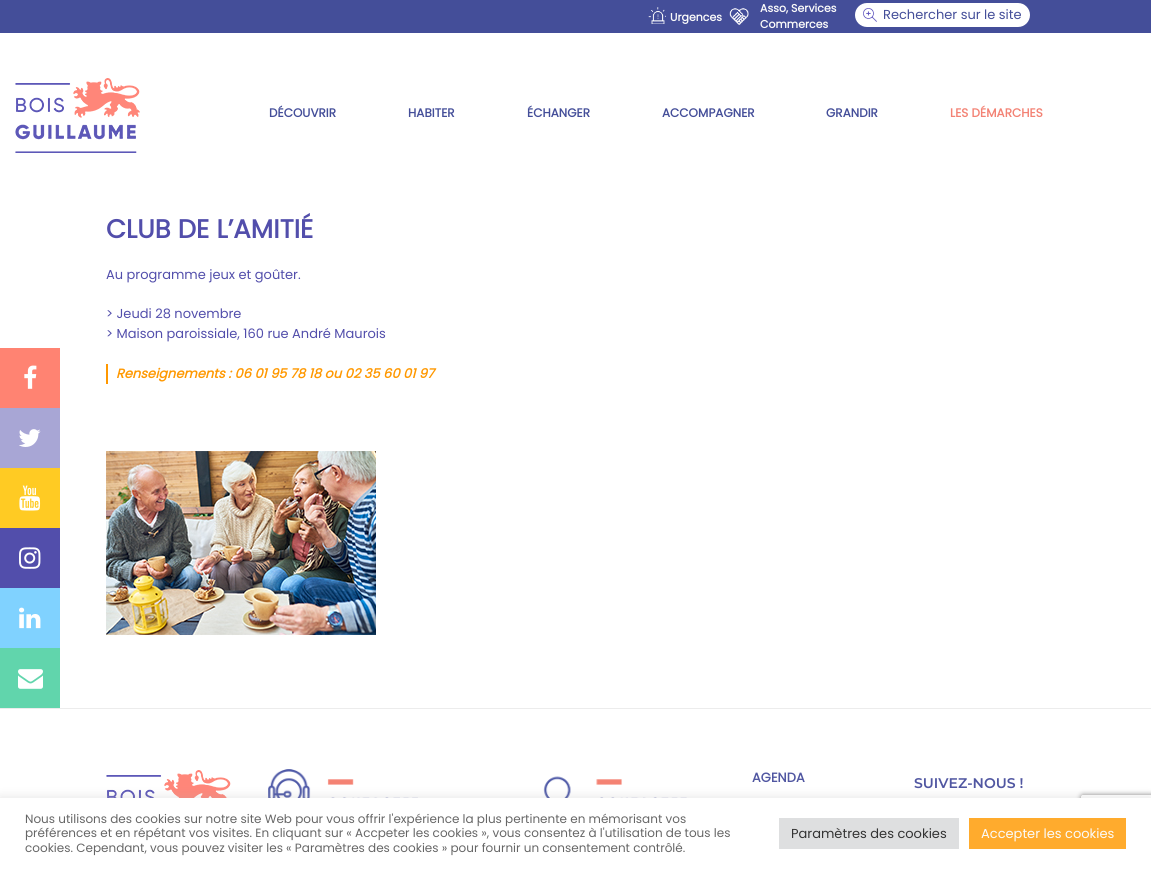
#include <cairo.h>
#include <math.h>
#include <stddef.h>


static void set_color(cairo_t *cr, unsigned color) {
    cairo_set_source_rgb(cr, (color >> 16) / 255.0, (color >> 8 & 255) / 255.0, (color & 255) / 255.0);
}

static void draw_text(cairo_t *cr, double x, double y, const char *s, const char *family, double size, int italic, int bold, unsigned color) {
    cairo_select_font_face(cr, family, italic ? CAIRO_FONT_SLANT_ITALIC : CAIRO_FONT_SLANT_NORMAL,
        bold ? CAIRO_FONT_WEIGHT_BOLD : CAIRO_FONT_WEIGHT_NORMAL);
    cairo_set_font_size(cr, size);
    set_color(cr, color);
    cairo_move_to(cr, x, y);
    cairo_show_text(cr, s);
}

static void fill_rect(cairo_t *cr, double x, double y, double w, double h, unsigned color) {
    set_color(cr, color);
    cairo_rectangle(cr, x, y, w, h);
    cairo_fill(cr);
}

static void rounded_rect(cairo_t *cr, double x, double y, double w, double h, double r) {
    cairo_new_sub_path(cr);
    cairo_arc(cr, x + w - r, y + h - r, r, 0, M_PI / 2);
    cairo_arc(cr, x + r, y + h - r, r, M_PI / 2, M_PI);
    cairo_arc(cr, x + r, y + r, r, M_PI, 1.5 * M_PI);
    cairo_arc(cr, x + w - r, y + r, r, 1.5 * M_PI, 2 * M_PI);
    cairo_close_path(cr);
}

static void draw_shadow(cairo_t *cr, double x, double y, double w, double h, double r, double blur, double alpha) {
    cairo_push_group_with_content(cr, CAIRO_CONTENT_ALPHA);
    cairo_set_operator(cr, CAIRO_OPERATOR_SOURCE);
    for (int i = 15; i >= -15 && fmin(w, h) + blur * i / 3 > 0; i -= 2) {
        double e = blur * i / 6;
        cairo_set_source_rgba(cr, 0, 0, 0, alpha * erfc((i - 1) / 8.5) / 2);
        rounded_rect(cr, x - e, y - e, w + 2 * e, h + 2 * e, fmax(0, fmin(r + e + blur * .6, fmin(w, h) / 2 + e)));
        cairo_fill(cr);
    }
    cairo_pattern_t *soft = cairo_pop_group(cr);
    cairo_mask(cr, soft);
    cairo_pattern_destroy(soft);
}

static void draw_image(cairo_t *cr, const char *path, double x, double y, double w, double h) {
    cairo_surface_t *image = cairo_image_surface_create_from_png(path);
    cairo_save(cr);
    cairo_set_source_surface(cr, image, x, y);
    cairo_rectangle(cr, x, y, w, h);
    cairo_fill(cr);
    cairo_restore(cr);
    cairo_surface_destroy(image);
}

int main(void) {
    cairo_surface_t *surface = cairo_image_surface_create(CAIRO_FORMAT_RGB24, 1151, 869);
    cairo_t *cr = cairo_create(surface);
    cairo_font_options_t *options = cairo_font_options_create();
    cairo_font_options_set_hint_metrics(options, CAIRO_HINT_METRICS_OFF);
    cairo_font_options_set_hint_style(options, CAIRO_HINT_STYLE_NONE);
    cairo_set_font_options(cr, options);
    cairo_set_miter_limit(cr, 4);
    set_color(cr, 0xFFFFFF);
    cairo_paint(cr);
    fill_rect(cr, 0, 0, 1151, 33, 0x444E99);
    draw_image(cr, "assets/img1.png", 648, 7, 18, 17);
    draw_text(cr, 670, 21, "Urgences", "Poppins", 11, 0, 1, 0xFBFBFA);
    draw_image(cr, "assets/img2.png", 729, 8, 20, 17);
    draw_text(cr, 760, 12, "Asso, Services", "Poppins", 11, 0, 1, 0xFBFBFA);
    draw_text(cr, 760, 28, "Commerces", "Poppins", 11, 0, 1, 0xFBFBFA);
    set_color(cr, 0xFFFFFF);
    rounded_rect(cr, 855, 3, 175, 24, 12);
    cairo_fill(cr);
    draw_image(cr, "assets/img3.png", 863, 8, 14, 14);
    draw_text(cr, 883, 19, "Rechercher sur le site", "Poppins", 13, 0, 0, 0x444E99);
    draw_image(cr, "assets/img4.png", 15, 78, 125, 75);
    draw_text(cr, 269, 117, "DÉCOUVRIR", "Poppins", 12, 0, 1, 0x444E99);
    draw_text(cr, 408, 117, "HABITER", "Poppins", 12, 0, 1, 0x444E99);
    draw_text(cr, 527, 117, "ÉCHANGER", "Poppins", 12, 0, 1, 0x444E99);
    draw_text(cr, 662, 117, "ACCOMPAGNER", "Poppins", 12, 0, 1, 0x444E99);
    draw_text(cr, 826, 117, "GRANDIR", "Poppins", 12, 0, 1, 0x444E99);
    draw_text(cr, 950, 117, "LES DÉMARCHES", "Poppins", 12, 0, 1, 0xF38274);
    draw_text(cr, 106, 238, "CLUB DE L’AMITIÉ", "Poppins", 26, 0, 1, 0x524EAB);
    draw_text(cr, 106, 279, "Au programme jeux et goûter.", "Poppins", 13, 0, 0, 0x524EAB);
    draw_text(cr, 106, 318, "> Jeudi 28 novembre", "Poppins", 13, 0, 0, 0x524EAB);
    draw_text(cr, 106, 338, "> Maison paroissiale, 160 rue André Maurois", "Poppins", 13, 0, 0, 0x524EAB);
    fill_rect(cr, 106, 364, 2, 20, 0xFF9800);
    draw_text(cr, 116, 378, "Renseignements : 06 01 95 78 18 ou 02 35 60 01 97", "Poppins", 13, 1, 1, 0xFF9800);
    draw_image(cr, "assets/img5.png", 106, 451, 270, 186);
    fill_rect(cr, 0, 348, 60, 60, 0xFF8372);
    draw_image(cr, "assets/img6.png", 24, 365, 13, 24);
    fill_rect(cr, 0, 408, 60, 60, 0xA8A6D5);
    draw_image(cr, "assets/img7.png", 19, 429, 22, 18);
    fill_rect(cr, 0, 468, 60, 60, 0xFFCB23);
    draw_image(cr, "assets/img8.png", 19, 485, 22, 26);
    fill_rect(cr, 0, 528, 60, 60, 0x524EAB);
    draw_image(cr, "assets/img9.png", 19, 547, 22, 22);
    fill_rect(cr, 0, 588, 60, 60, 0x80D2FF);
    draw_image(cr, "assets/img10.png", 19, 607, 22, 22);
    fill_rect(cr, 0, 648, 60, 60, 0x61D5AC);
    draw_image(cr, "assets/img11.png", 18, 669, 25, 20);
    fill_rect(cr, 0, 708, 1151, 1, 0xECECEC);
    draw_image(cr, "assets/img12.png", 106, 770, 125, 28);
    draw_image(cr, "assets/img13.png", 268, 769, 150, 29);
    draw_image(cr, "assets/img14.png", 543, 776, 144, 22);
    draw_text(cr, 752, 782, "AGENDA", "Poppins", 13, 0, 1, 0x5056A1);
    draw_text(cr, 914, 788, "SUIVEZ-NOUS !", "Montserrat SemiBold", 14, 0, 0, 0x5056A1);
    cairo_save(cr);
    cairo_set_fill_rule(cr, CAIRO_FILL_RULE_EVEN_ODD);
    cairo_new_path(cr);
    cairo_move_to(cr, 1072, 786);
    cairo_line_to(cr, 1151, 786);
    cairo_line_to(cr, 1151, 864);
    cairo_line_to(cr, 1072, 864);
    cairo_close_path(cr);
    cairo_move_to(cr, 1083, 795);
    cairo_line_to(cr, 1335, 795);
    cairo_curve_to(cr, 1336, 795, 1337, 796, 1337, 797);
    cairo_line_to(cr, 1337, 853);
    cairo_curve_to(cr, 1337, 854, 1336, 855, 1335, 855);
    cairo_line_to(cr, 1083, 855);
    cairo_curve_to(cr, 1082, 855, 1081, 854, 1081, 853);
    cairo_line_to(cr, 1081, 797);
    cairo_curve_to(cr, 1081, 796, 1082, 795, 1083, 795);
    cairo_close_path(cr);
    cairo_clip(cr);
    set_color(cr, 0x808080);
    draw_shadow(cr, 1081, 795, 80, 60, 2, 2.5, 1);
    cairo_restore(cr);
    set_color(cr, 0xACABAB);
    draw_shadow(cr, 0, 797, 1151, 71, 0, 5, 0.3);
    fill_rect(cr, 0, 798, 1151, 71, 0xFFFFFF);
    draw_text(cr, 25, 823, "Nous utilisons des cookies sur notre site Web pour vous offrir l'expérience la plus pertinente en mémorisant vos", "Poppins", 12, 0, 0, 0x666666);
    draw_text(cr, 25, 837, "préférences et en répétant vos visites. En cliquant sur « Accpeter les cookies », vous consentez à l'utilisation de tous les", "Poppins", 12, 0, 0, 0x666666);
    draw_text(cr, 25, 852, "cookies. Cependant, vous pouvez visiter les « Paramètres des cookies » pour fournir un consentement contrôlé.", "Poppins", 12, 0, 0, 0x666666);
    fill_rect(cr, 779, 818, 180, 31, 0xDEDFE0);
    draw_text(cr, 791, 838, "Paramètres des cookies", "Poppins", 13, 0, 0, 0x333333);
    fill_rect(cr, 969, 818, 157, 31, 0xFFAB2D);
    draw_text(cr, 981, 838, "Accepter les cookies", "Poppins", 13, 0, 0, 0xFBFBFA);
    cairo_surface_write_to_png(surface, "output.png");
    cairo_font_options_destroy(options);
    cairo_destroy(cr);
    cairo_surface_destroy(surface);
    return 0;
}
